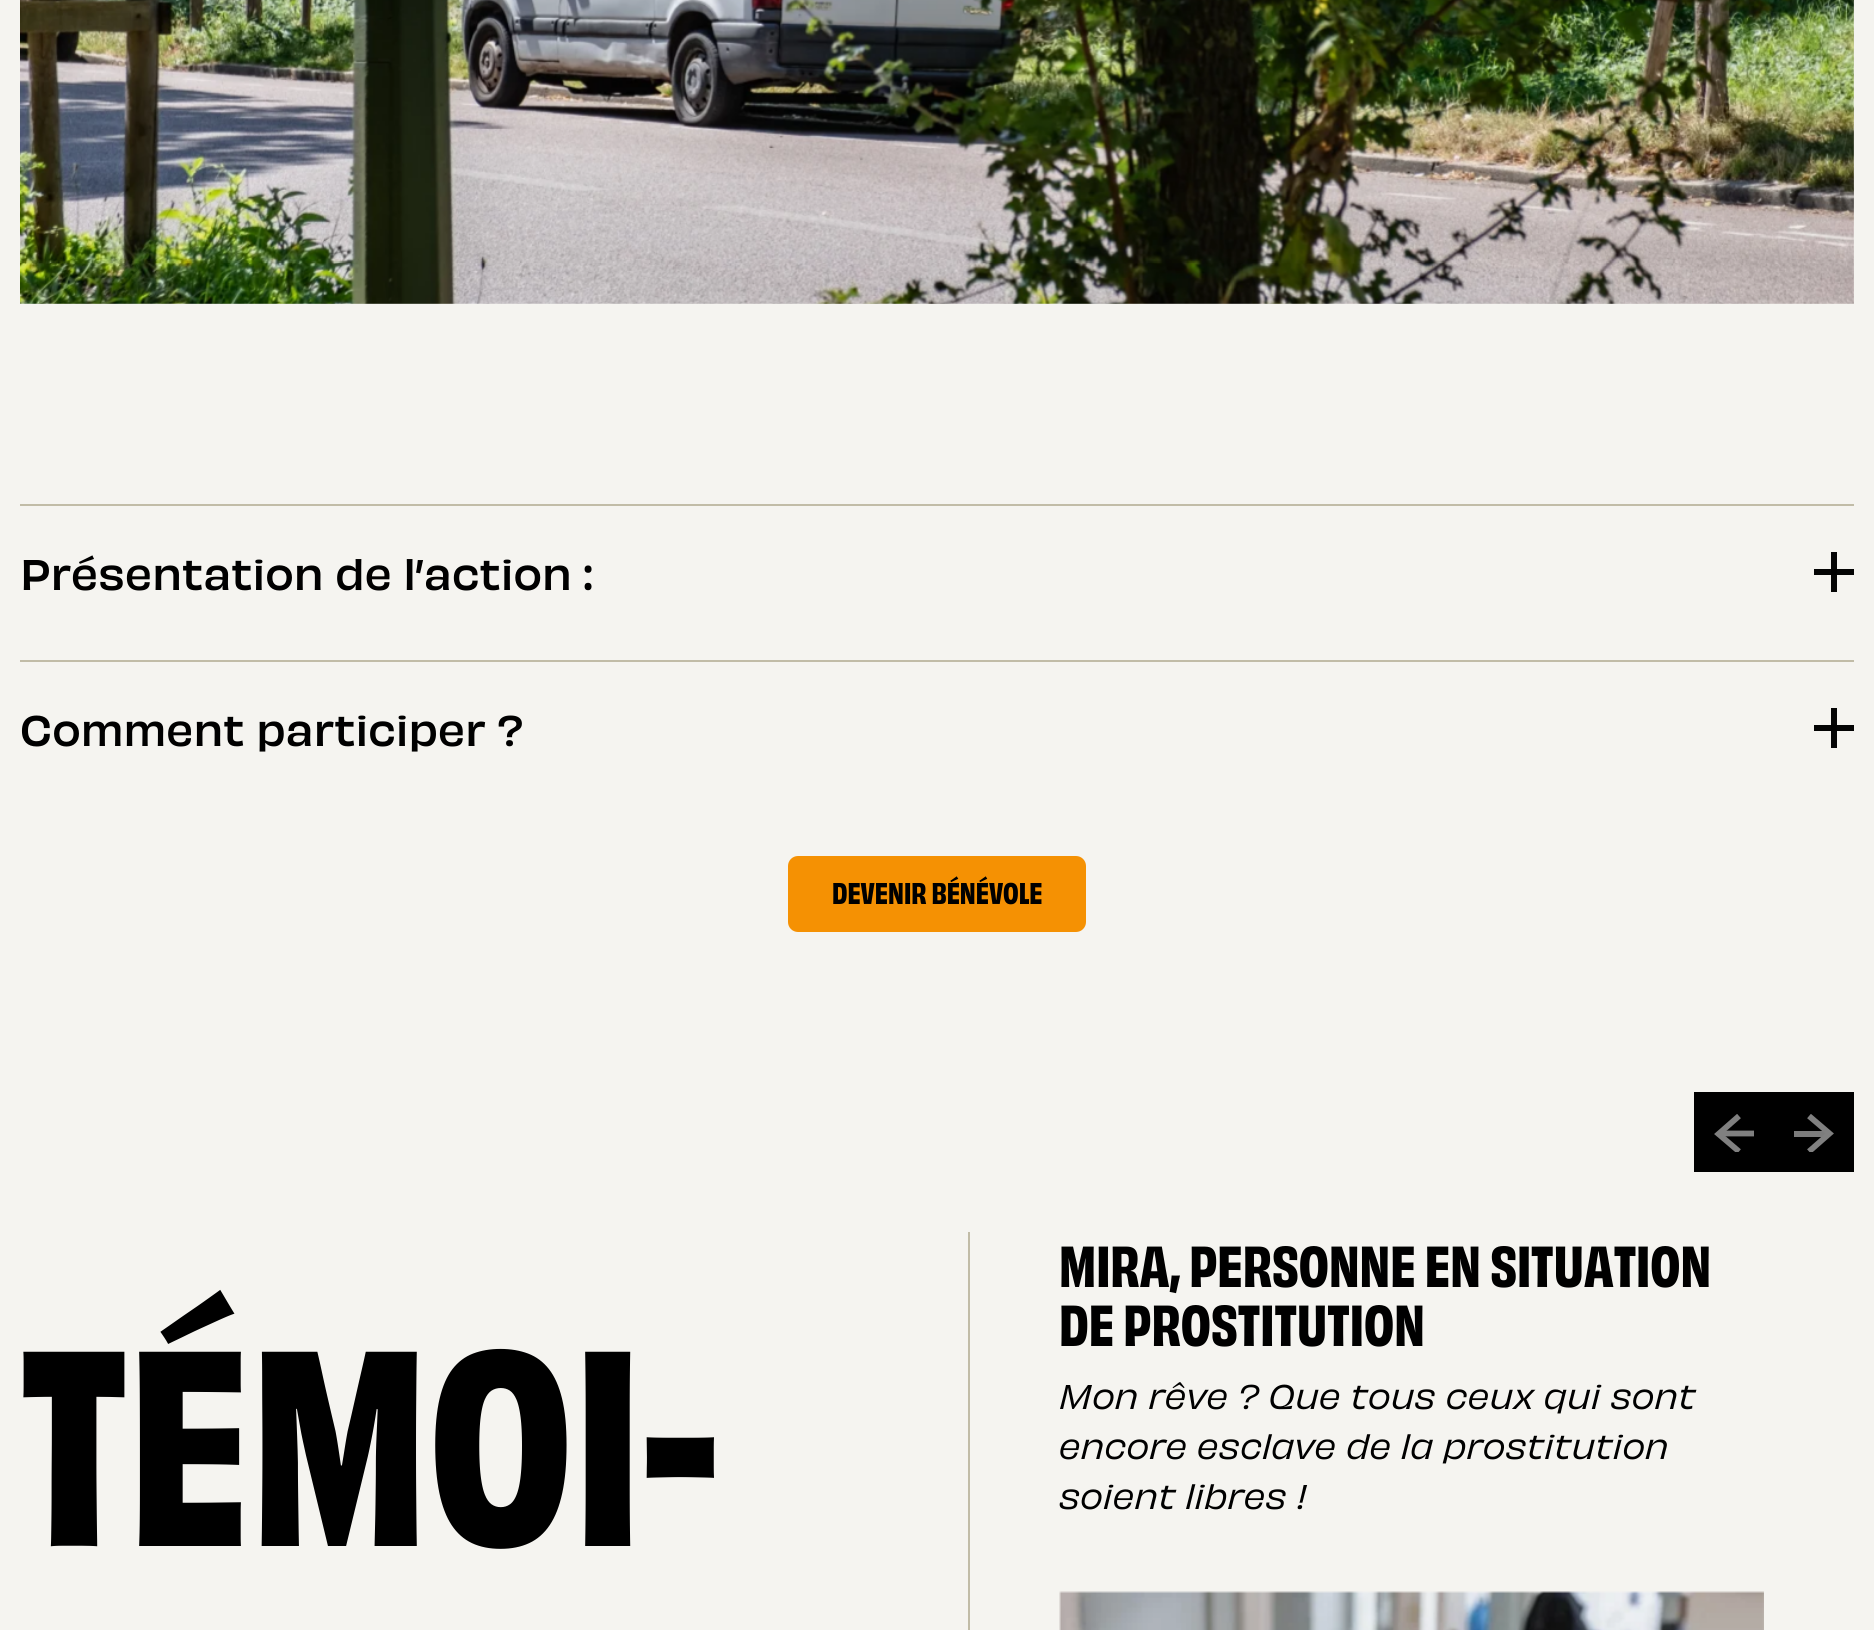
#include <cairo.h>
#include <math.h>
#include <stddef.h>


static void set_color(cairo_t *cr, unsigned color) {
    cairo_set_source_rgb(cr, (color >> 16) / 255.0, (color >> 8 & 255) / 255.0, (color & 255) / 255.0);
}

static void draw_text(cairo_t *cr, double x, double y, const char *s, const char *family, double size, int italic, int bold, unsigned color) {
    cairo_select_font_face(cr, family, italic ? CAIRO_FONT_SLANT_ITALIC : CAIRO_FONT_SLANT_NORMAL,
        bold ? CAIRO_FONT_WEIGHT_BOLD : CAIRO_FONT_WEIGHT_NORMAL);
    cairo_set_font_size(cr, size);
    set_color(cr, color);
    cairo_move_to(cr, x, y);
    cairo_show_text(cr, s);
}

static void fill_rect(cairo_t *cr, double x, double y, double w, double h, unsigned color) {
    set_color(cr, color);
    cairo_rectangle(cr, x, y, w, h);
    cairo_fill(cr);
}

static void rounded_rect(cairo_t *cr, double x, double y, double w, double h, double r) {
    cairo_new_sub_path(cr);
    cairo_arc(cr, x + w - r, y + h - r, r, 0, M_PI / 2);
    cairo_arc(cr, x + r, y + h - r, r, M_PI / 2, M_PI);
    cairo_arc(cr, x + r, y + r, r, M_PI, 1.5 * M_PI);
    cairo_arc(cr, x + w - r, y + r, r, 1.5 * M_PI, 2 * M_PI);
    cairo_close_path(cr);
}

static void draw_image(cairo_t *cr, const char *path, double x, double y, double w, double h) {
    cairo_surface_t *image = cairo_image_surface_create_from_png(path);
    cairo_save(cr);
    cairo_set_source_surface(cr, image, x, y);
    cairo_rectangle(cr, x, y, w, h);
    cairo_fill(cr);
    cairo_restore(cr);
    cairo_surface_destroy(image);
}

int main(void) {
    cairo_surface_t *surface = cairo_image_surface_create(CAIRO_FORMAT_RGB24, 1874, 1630);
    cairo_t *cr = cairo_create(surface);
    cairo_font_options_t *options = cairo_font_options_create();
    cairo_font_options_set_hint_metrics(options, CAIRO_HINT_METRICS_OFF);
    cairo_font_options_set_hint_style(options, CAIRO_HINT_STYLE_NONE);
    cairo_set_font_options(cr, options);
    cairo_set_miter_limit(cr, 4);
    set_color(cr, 0xF5F4F0);
    cairo_paint(cr);
    fill_rect(cr, 1831, 708, 6, 40, 0x050505);
    fill_rect(cr, 1831, 552, 6, 40, 0x050505);
    draw_image(cr, "assets/img1.png", 20, 0, 1834, 304);
    fill_rect(cr, 20, 504, 1834, 2, 0xC1BCA7);
    draw_text(cr, 20, 590, "Présentation de l’action :", "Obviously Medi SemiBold", 40, 0, 0, 0x000000);
    fill_rect(cr, 1814, 569, 40, 6, 0x040404);
    fill_rect(cr, 1831, 569, 6, 6, 0x000000);
    fill_rect(cr, 20, 660, 1834, 2, 0xC1BCA7);
    draw_text(cr, 20, 746, "Comment participer ?", "Obviously Medi SemiBold", 40, 0, 0, 0x000000);
    fill_rect(cr, 1814, 725, 40, 6, 0x040404);
    fill_rect(cr, 1831, 725, 6, 6, 0x000000);
    set_color(cr, 0xF59103);
    rounded_rect(cr, 790, 858, 294, 72, 8);
    cairo_fill_preserve(cr);
    cairo_set_line_width(cr, 4);
    cairo_stroke(cr);
    draw_text(cr, 832, 904, "DEVENIR BÉNÉVOLE", "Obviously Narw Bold", 28, 0, 1, 0x000000);
    draw_text(cr, 20, 1546, "TÉMOI-", "Obviously Narw Bold", 259, 0, 1, 0x000000);
    fill_rect(cr, 1694, 1092, 160, 80, 0x000000);
    cairo_save(cr);
    cairo_rectangle(cr, 1714, 1114, 40, 38);
    cairo_clip(cr);
    cairo_new_path(cr);
    cairo_move_to(cr, 1739, 1116);
    cairo_line_to(cr, 1718.5, 1134);
    cairo_line_to(cr, 1739, 1151.5);
    set_color(cr, 0x808080);
    cairo_set_line_width(cr, 5.8);
    cairo_stroke(cr);
    cairo_restore(cr);
    cairo_new_path(cr);
    cairo_move_to(cr, 1754, 1133.5);
    cairo_line_to(cr, 1722, 1133.5);
    set_color(cr, 0x808080);
    cairo_set_line_width(cr, 5.8);
    cairo_stroke(cr);
    cairo_save(cr);
    cairo_rectangle(cr, 1794, 1114, 40, 38);
    cairo_clip(cr);
    cairo_new_path(cr);
    cairo_move_to(cr, 1809, 1151.5);
    cairo_line_to(cr, 1829.5, 1133.5);
    cairo_line_to(cr, 1809, 1116);
    cairo_stroke(cr);
    cairo_restore(cr);
    cairo_set_source_rgba(cr, 0.502, 0.502, 0.502, 0.97);
    cairo_rectangle(cr, 1794, 1131, 32, 6);
    cairo_fill(cr);
    fill_rect(cr, 968, 1232, 2, 398, 0xC1BCA7);
    draw_text(cr, 1059, 1287, "MIRA, PERSONNE EN SITUATION", "Obviously Narw Bold", 53.9, 0, 1, 0x000000);
    draw_text(cr, 1059, 1346, "DE PROSTITUTION", "Obviously Narw Bold", 53.9, 0, 1, 0x000000);
    draw_text(cr, 1059, 1409, "Mon rêve ? Que tous ceux qui sont", "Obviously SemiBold", 32, 1, 0, 0x000000);
    draw_text(cr, 1059, 1459, "encore esclave de la prostitution", "Obviously SemiBold", 32, 1, 0, 0x000000);
    draw_text(cr, 1059, 1509, "soient libres !", "Obviously SemiBold", 32, 1, 0, 0x000000);
    draw_image(cr, "assets/img2.png", 1059, 1591, 705, 39);
    cairo_surface_write_to_png(surface, "output.png");
    cairo_font_options_destroy(options);
    cairo_destroy(cr);
    cairo_surface_destroy(surface);
    return 0;
}
